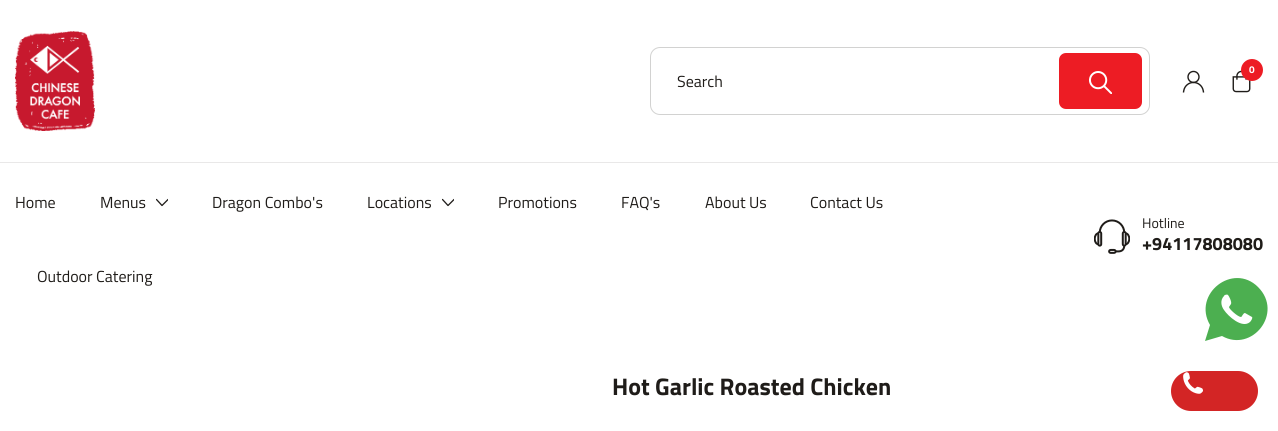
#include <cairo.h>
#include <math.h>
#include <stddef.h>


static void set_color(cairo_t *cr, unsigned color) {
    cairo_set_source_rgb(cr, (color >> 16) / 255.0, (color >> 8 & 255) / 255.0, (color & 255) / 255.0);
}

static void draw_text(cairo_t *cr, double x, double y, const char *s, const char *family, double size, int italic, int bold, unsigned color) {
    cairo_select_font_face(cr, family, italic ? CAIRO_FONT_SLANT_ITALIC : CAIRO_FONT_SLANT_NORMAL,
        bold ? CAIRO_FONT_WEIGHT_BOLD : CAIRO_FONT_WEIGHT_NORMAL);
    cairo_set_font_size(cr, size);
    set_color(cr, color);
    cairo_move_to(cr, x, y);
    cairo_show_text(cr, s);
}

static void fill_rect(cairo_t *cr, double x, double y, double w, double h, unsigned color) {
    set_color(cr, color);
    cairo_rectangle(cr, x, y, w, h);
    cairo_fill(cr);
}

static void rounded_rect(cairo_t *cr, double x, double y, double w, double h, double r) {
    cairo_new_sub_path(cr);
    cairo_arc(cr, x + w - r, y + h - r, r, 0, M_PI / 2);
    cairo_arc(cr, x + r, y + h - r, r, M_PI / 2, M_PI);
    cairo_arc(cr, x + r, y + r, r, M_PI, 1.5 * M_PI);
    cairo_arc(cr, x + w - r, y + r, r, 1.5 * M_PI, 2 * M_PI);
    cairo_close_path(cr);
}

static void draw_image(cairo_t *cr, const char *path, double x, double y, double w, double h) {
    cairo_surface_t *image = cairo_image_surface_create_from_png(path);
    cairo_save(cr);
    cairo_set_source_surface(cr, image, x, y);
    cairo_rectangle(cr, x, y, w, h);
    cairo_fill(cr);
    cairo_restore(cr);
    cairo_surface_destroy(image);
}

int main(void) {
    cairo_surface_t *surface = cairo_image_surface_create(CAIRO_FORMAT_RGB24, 1278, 431);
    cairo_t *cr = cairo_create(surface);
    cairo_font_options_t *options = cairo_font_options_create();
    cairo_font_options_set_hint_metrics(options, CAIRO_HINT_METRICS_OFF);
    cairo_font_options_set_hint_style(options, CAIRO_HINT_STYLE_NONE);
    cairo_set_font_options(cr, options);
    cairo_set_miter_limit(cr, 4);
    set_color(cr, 0xFFFFFF);
    cairo_paint(cr);
    draw_image(cr, "assets/img1.png", 15, 31, 80, 100);
    rounded_rect(cr, 650.5, 47.5, 499, 67, 9.5);
    set_color(cr, 0xD2D2D1);
    cairo_set_line_width(cr, 1);
    cairo_stroke(cr);
    draw_text(cr, 677, 87, "Search", "Titillium Web", 16, 0, 0, 0x1F1C19);
    set_color(cr, 0xED1C24);
    rounded_rect(cr, 1059, 53, 83, 56, 7);
    cairo_fill(cr);
    draw_image(cr, "assets/img2.png", 1089, 71, 23, 23);
    draw_image(cr, "assets/img3.png", 1182, 70, 23, 23);
    draw_image(cr, "assets/img4.png", 1232, 70, 19, 23);
    cairo_arc(cr, 1252, 70, 11, 0, 2 * M_PI);
    cairo_fill(cr);
    draw_text(cr, 1249, 73, "0", "Titillium Web", 10, 0, 1, 0xFFFFFF);
    fill_rect(cr, 0, 162, 1278, 1, 0xE9E8E8);
    draw_text(cr, 15, 208, "Home", "Titillium Web", 16, 0, 0, 0x1F1C19);
    draw_text(cr, 100, 208, "Menus", "Titillium Web", 16, 0, 0, 0x1F1C19);
    cairo_save(cr);
    cairo_rectangle(cr, 156, 191, 12, 23);
    cairo_clip(cr);
    cairo_new_path(cr);
    cairo_move_to(cr, 168, 199.5);
    cairo_line_to(cr, 162, 205.5);
    cairo_line_to(cr, 156.5, 199.5);
    cairo_set_line_width(cr, 1.3);
    cairo_set_line_cap(cr, CAIRO_LINE_CAP_ROUND);
    cairo_set_line_join(cr, CAIRO_LINE_JOIN_ROUND);
    cairo_stroke(cr);
    cairo_restore(cr);
    draw_text(cr, 212, 208, "Dragon Combo's", "Titillium Web", 16, 0, 0, 0x1F1C19);
    draw_text(cr, 367, 208, "Locations", "Titillium Web", 16, 0, 0, 0x1F1C19);
    cairo_save(cr);
    cairo_rectangle(cr, 442, 191, 12, 23);
    cairo_clip(cr);
    cairo_new_path(cr);
    cairo_move_to(cr, 454, 199.5);
    cairo_line_to(cr, 448, 205.5);
    cairo_line_to(cr, 442.5, 199.5);
    cairo_set_line_width(cr, 1.3);
    cairo_set_line_cap(cr, CAIRO_LINE_CAP_ROUND);
    cairo_set_line_join(cr, CAIRO_LINE_JOIN_ROUND);
    cairo_stroke(cr);
    cairo_restore(cr);
    draw_text(cr, 498, 208, "Promotions", "Titillium Web", 16, 0, 0, 0x1F1C19);
    draw_text(cr, 621, 208, "FAQ's", "Titillium Web", 16, 0, 0, 0x1F1C19);
    draw_text(cr, 705, 208, "About Us", "Titillium Web", 16, 0, 0, 0x1F1C19);
    draw_text(cr, 810, 208, "Contact Us", "Titillium Web", 16, 0, 0, 0x1F1C19);
    draw_text(cr, 37, 282, "Outdoor Catering", "Titillium Web", 16, 0, 0, 0x1F1C19);
    draw_image(cr, "assets/img5.png", 1094, 219, 36, 35);
    draw_text(cr, 1142, 228, "Hotline", "Titillium Web", 14, 0, 0, 0x1F1C19);
    draw_text(cr, 1142, 250, "+94117808080", "Titillium Web", 18, 0, 1, 0x1F1C19);
    set_color(cr, 0x4CAF50);
    cairo_set_fill_rule(cr, CAIRO_FILL_RULE_EVEN_ODD);
    cairo_new_path(cr);
    cairo_move_to(cr, 1258, 287);
    cairo_curve_to(cr, 1233, 262, 1192, 294, 1210, 325);
    cairo_line_to(cr, 1205, 341);
    cairo_line_to(cr, 1222, 336);
    cairo_curve_to(cr, 1252, 353, 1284, 313, 1258, 287);
    cairo_close_path(cr);
    cairo_move_to(cr, 1224, 310);
    cairo_curve_to(cr, 1221, 306, 1220, 300, 1224, 296);
    cairo_curve_to(cr, 1224, 295, 1227, 294, 1228, 295);
    cairo_curve_to(cr, 1229, 296, 1232, 302, 1231, 304);
    cairo_line_to(cr, 1229, 307);
    cairo_curve_to(cr, 1229, 309, 1238, 317, 1241, 317);
    cairo_curve_to(cr, 1242, 317, 1243, 313, 1245, 313);
    cairo_line_to(cr, 1252, 317);
    cairo_curve_to(cr, 1253, 318, 1251, 321, 1250, 322);
    cairo_curve_to(cr, 1242, 329, 1228, 316, 1224, 310);
    cairo_close_path(cr);
    cairo_fill(cr);
    draw_text(cr, 612, 395, "Hot Garlic Roasted Chicken", "Titillium Web", 24, 0, 1, 0x1F1C19);
    set_color(cr, 0xD32525);
    rounded_rect(cr, 1171, 371, 87, 40, 20);
    cairo_fill(cr);
    draw_image(cr, "assets/img6.png", 1183, 372, 20, 22);
    cairo_surface_write_to_png(surface, "output.png");
    cairo_font_options_destroy(options);
    cairo_destroy(cr);
    cairo_surface_destroy(surface);
    return 0;
}
